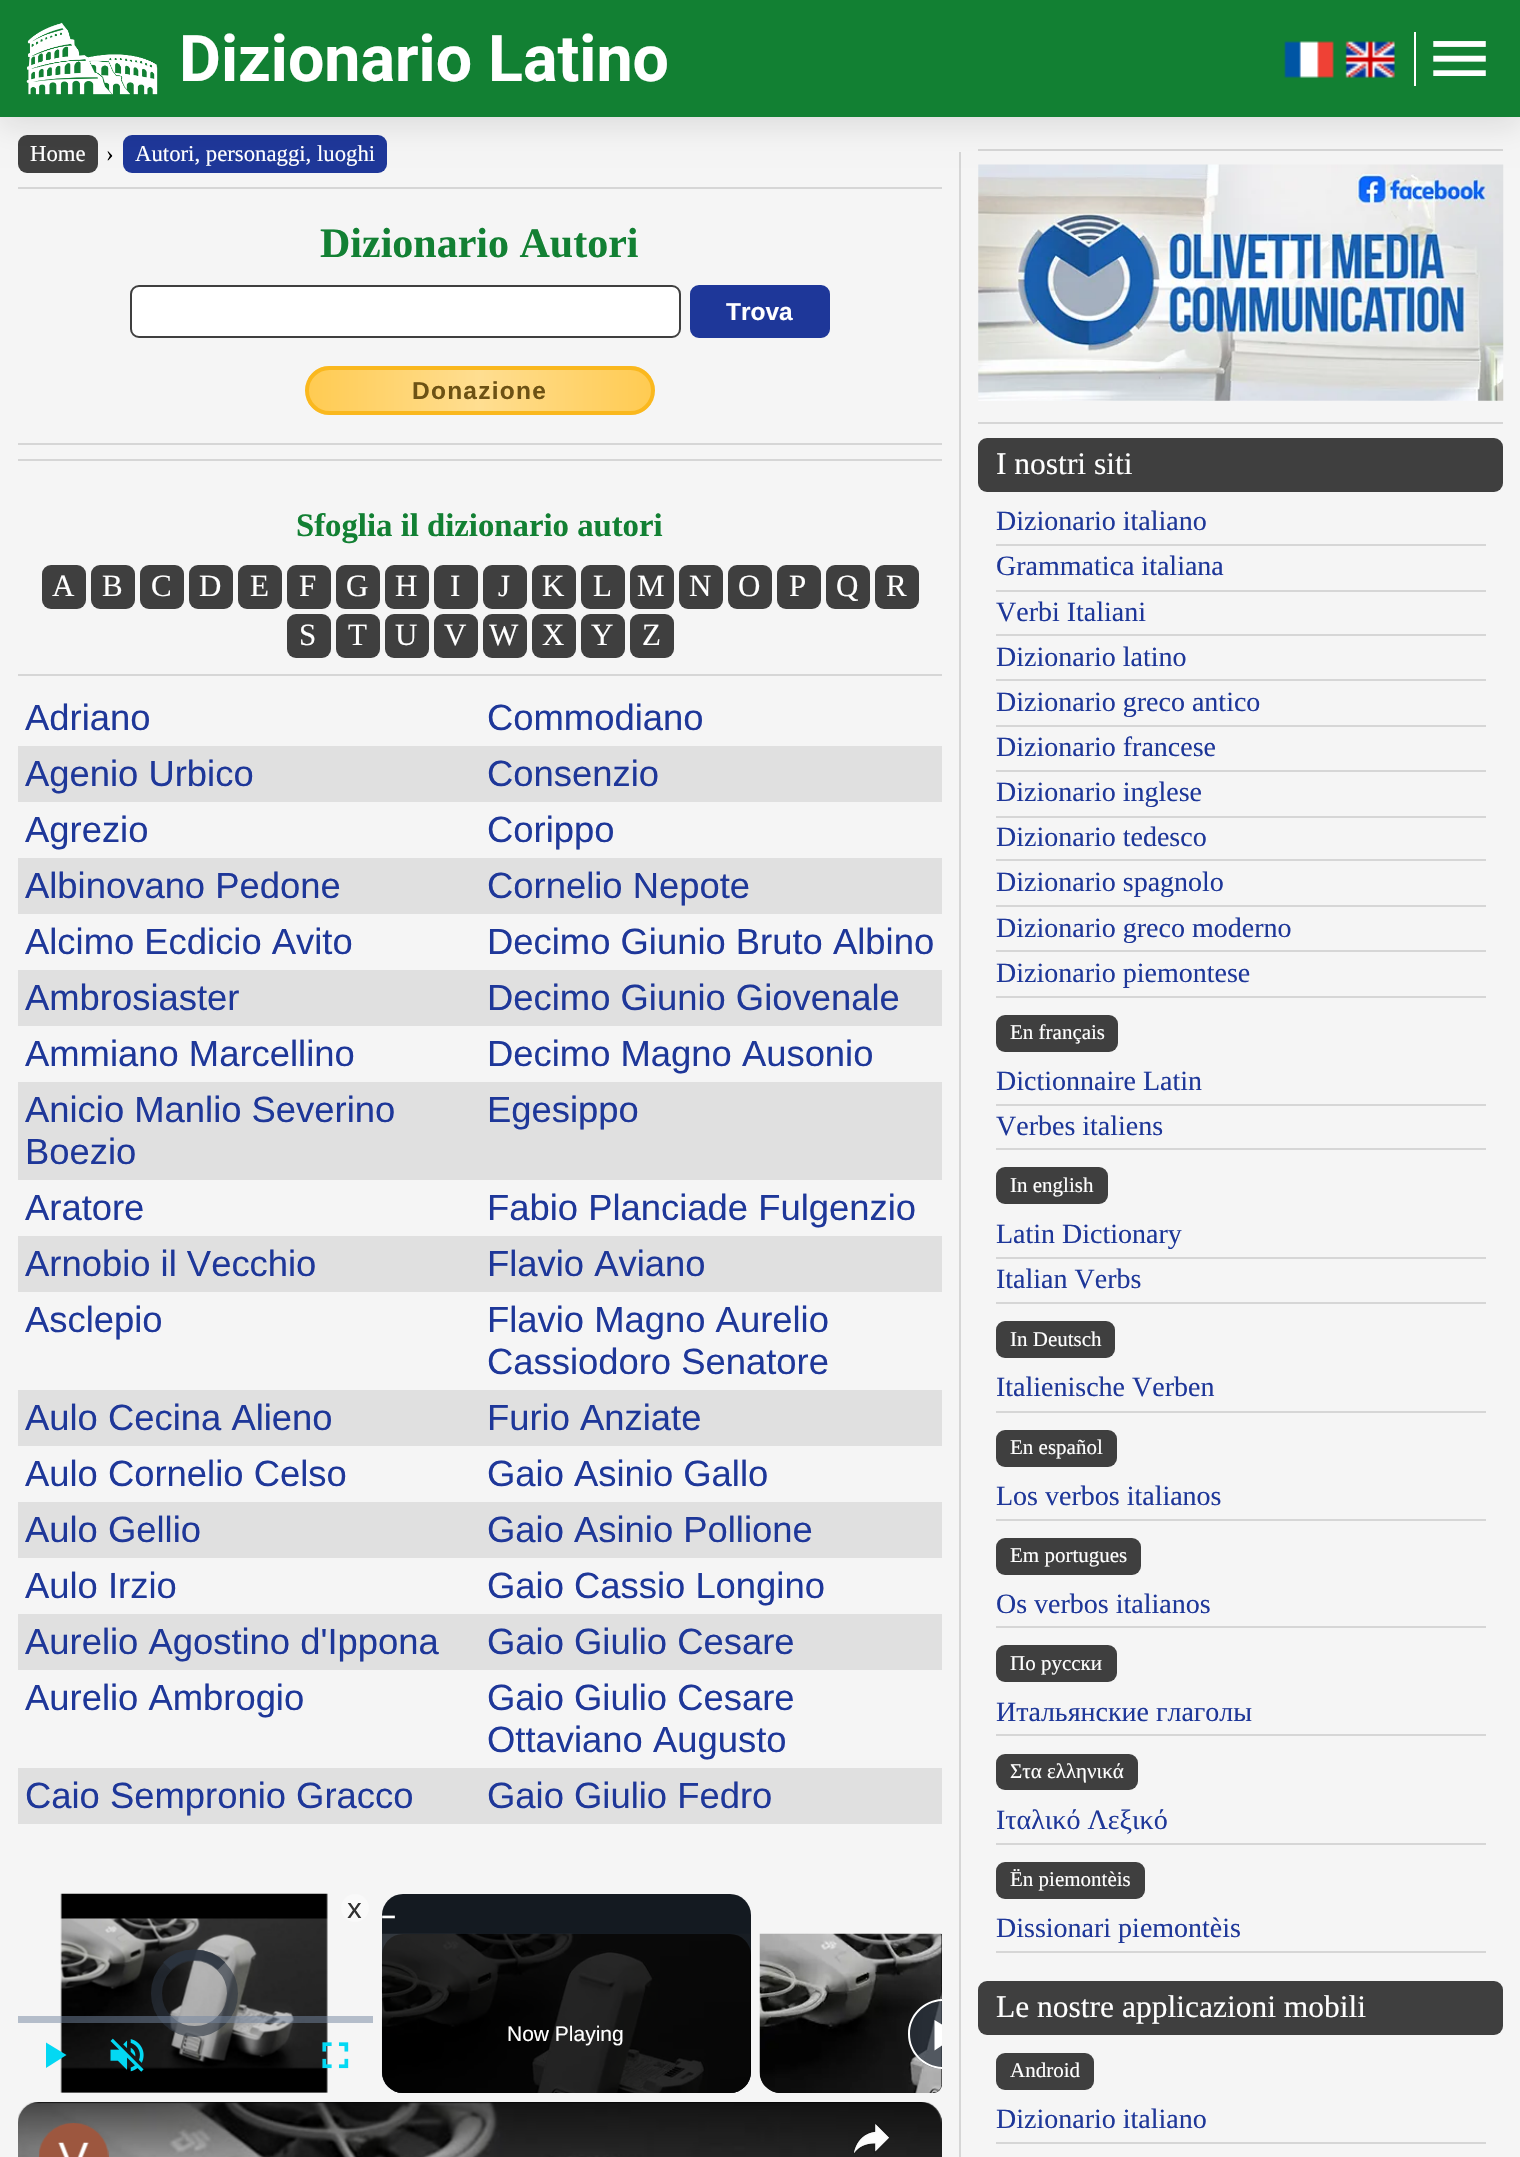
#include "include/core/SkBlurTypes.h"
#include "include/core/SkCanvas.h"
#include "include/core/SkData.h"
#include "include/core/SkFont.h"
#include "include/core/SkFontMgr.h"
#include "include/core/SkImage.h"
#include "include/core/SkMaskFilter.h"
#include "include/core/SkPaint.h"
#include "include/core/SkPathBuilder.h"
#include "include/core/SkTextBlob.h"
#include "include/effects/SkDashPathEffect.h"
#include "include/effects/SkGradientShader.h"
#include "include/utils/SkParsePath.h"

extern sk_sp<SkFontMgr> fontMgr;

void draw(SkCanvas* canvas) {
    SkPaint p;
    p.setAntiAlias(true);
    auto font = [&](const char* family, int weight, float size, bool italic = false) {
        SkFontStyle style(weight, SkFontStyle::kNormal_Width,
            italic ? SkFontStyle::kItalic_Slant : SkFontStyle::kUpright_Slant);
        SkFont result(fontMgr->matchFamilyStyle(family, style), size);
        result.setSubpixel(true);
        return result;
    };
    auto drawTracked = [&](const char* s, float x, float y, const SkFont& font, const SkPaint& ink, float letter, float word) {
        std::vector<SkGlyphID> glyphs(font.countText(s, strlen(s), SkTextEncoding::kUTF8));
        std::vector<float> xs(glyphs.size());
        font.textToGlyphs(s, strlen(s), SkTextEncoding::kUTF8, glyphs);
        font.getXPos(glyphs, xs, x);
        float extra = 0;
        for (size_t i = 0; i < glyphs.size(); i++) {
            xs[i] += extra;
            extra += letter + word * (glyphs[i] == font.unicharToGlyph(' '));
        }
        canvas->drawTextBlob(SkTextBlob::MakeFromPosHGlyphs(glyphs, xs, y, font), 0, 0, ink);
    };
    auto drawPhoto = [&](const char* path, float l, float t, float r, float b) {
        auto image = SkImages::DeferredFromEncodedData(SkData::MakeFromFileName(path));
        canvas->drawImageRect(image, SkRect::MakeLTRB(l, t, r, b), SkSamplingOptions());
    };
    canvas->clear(0xFFF5F5F5);
    p.setColor(0xFF3F3F3F);
    canvas->drawRoundRect(SkRect::MakeLTRB(18, 135, 98, 173), 9, 9, p);
    p.setColor(0xFF1E3799);
    canvas->drawRoundRect(SkRect::MakeLTRB(123, 135, 387, 173), 9, 9, p);
    p.setColor(0xFFD6D6D6);
    canvas->drawRect(SkRect::MakeLTRB(959, 152, 961, 2157), p);
    canvas->drawRect(SkRect::MakeLTRB(978, 149, 1503, 151), p);
    drawPhoto("media/13.png", 978, 164, 1504, 401);
    p.setColor(0x1A000000);
    p.setMaskFilter(SkMaskFilter::MakeBlur(kNormal_SkBlurStyle, 14));
    canvas->drawRect(SkRect::MakeLTRB(0, 9, 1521, 126), p);
    p.setMaskFilter(nullptr);
    p.setColor(0xFF128033);
    canvas->drawRect(SkRect::MakeLTRB(0, 0, 1520, 117), p);
    drawPhoto("media/1.png", 26, 22, 158, 95);
    auto font1 = font("Roboto", 700, 64.5f);
    p.setColor(0xFFFFFFFF);
    canvas->drawString("Dizionario Latino", 179, 81, font1, p);
    drawPhoto("media/2.png", 1284, 41, 1334, 78);
    drawPhoto("media/3.png", 1345, 41, 1395, 78);
    canvas->drawRect(SkRect::MakeLTRB(1414, 32, 1416, 86), p);
    drawPhoto("media/4.png", 1433, 41, 1486, 76);
    auto font2 = font("Liberation Serif", 400, 22.75f);
    canvas->drawString("Home", 30, 161, font2, p);
    p.setColor(0xFF000000);
    canvas->drawString("›", 106, 161, font2, p);
    p.setColor(0xFFFFFFFF);
    canvas->drawString("Autori, personaggi, luoghi", 135, 161, font2, p);
    p.setColor(0xFFD6D6D6);
    canvas->drawRect(SkRect::MakeLTRB(18, 187, 942, 189), p);
    auto font3 = font("Liberation Serif", 700, 42);
    p.setColor(0xFF128033);
    canvas->drawString("Dizionario Autori", 320, 257, font3, p);
    p.setColor(0xFFFFFFFF);
    canvas->drawRoundRect(SkRect::MakeLTRB(131, 286, 680, 337), 8, 8, p);
    p.setStyle(SkPaint::kStroke_Style);
    p.setStrokeWidth(2);
    p.setColor(0xFF3F3F3F);
    canvas->drawRoundRect(SkRect::MakeLTRB(131, 286, 680, 337), 8, 8, p);
    p.setStyle(SkPaint::kFill_Style);
    p.setColor(0xFF1E3799);
    canvas->drawRoundRect(SkRect::MakeLTRB(691, 286, 829, 337), 8, 8, p);
    p.setStyle(SkPaint::kStroke_Style);
    canvas->drawRoundRect(SkRect::MakeLTRB(691, 286, 829, 337), 8, 8, p);
    auto font4 = font("Liberation Sans", 700, 24.5f);
    p.setStyle(SkPaint::kFill_Style);
    p.setColor(0xFFFFFFFF);
    canvas->drawString("Trova", 726, 320, font4, p);
    canvas->save();
    canvas->clipPath(SkPathBuilder().moveTo(329.5f, 366).lineTo(630.5f, 366).cubicTo(644, 366, 655, 377, 655, 390.5f).cubicTo(655, 404, 644, 415, 630.5f, 415).lineTo(329.5f, 415).cubicTo(316, 415, 305, 404, 305, 390.5f).cubicTo(305, 377, 316, 366, 329.5f, 366).close().detach(), true);
    {
        const SkColor colors[] = {0xFFFFCB52, 0xFFFFDE91, 0xFFFFCB52};
        const float stops[] = {0, 0.5f, 1};
        const SkPoint ends[] = {{308, 390}, {651, 390}};
        p.setShader(SkGradientShader::MakeLinear(ends, colors, stops, 3, SkTileMode::kClamp));
        p.setAlpha(255);
    }
    canvas->drawRect(SkRect::MakeLTRB(308, 366, 651, 415), p);
    canvas->restore();
    p.setStyle(SkPaint::kStroke_Style);
    p.setStrokeWidth(4);
    p.setShader(nullptr);
    p.setColor(0xFFFAB81E);
    canvas->drawRoundRect(SkRect::MakeLTRB(307, 368, 653, 413), 22.5f, 22.5f, p);
    p.setStyle(SkPaint::kFill_Style);
    p.setColor(0xFF6D5214);
    drawTracked("Donazione", 412, 399, font4, p, 1.25f, 0);
    p.setColor(0xFFD6D6D6);
    canvas->drawRect(SkRect::MakeLTRB(18, 443, 942, 445), p);
    canvas->drawRect(SkRect::MakeLTRB(18, 459, 942, 461), p);
    auto font5 = font("Liberation Serif", 700, 32.75f);
    p.setColor(0xFF128033);
    canvas->drawString("Sfoglia il dizionario autori", 296, 536, font5, p);
    p.setColor(0xFF3F3F3F);
    canvas->drawRoundRect(SkRect::MakeLTRB(42, 565, 86, 609), 9, 9, p);
    auto font6 = font("Liberation Serif", 400, 31);
    p.setColor(0xFFFFFFFF);
    canvas->drawString("A", 52, 596, font6, p);
    p.setColor(0xFF3F3F3F);
    canvas->drawRoundRect(SkRect::MakeLTRB(91, 565, 135, 609), 9, 9, p);
    p.setColor(0xFFFFFFFF);
    canvas->drawString("B", 102, 596, font6, p);
    p.setColor(0xFF3F3F3F);
    canvas->drawRoundRect(SkRect::MakeLTRB(140, 565, 184, 609), 9, 9, p);
    p.setColor(0xFFFFFFFF);
    canvas->drawString("C", 151, 596, font6, p);
    p.setColor(0xFF3F3F3F);
    canvas->drawRoundRect(SkRect::MakeLTRB(189, 565, 233, 609), 9, 9, p);
    p.setColor(0xFFFFFFFF);
    canvas->drawString("D", 199, 596, font6, p);
    p.setColor(0xFF3F3F3F);
    canvas->drawRoundRect(SkRect::MakeLTRB(238, 565, 282, 609), 9, 9, p);
    p.setColor(0xFFFFFFFF);
    canvas->drawString("E", 250, 596, font6, p);
    p.setColor(0xFF3F3F3F);
    canvas->drawRoundRect(SkRect::MakeLTRB(287, 565, 331, 609), 9, 9, p);
    p.setColor(0xFFFFFFFF);
    canvas->drawString("F", 299, 596, font6, p);
    p.setColor(0xFF3F3F3F);
    canvas->drawRoundRect(SkRect::MakeLTRB(336, 565, 380, 609), 9, 9, p);
    p.setColor(0xFFFFFFFF);
    canvas->drawString("G", 346, 596, font6, p);
    p.setColor(0xFF3F3F3F);
    canvas->drawRoundRect(SkRect::MakeLTRB(385, 565, 429, 609), 9, 9, p);
    p.setColor(0xFFFFFFFF);
    canvas->drawString("H", 395, 596, font6, p);
    p.setColor(0xFF3F3F3F);
    canvas->drawRoundRect(SkRect::MakeLTRB(434, 565, 478, 609), 9, 9, p);
    p.setColor(0xFFFFFFFF);
    canvas->drawString("I", 450, 596, font6, p);
    p.setColor(0xFF3F3F3F);
    canvas->drawRoundRect(SkRect::MakeLTRB(483, 565, 527, 609), 9, 9, p);
    p.setColor(0xFFFFFFFF);
    canvas->drawString("J", 498, 596, font6, p);
    p.setColor(0xFF3F3F3F);
    canvas->drawRoundRect(SkRect::MakeLTRB(532, 565, 576, 609), 9, 9, p);
    p.setColor(0xFFFFFFFF);
    canvas->drawString("K", 542, 596, font6, p);
    p.setColor(0xFF3F3F3F);
    canvas->drawRoundRect(SkRect::MakeLTRB(581, 565, 625, 609), 9, 9, p);
    p.setColor(0xFFFFFFFF);
    canvas->drawString("L", 593, 596, font6, p);
    p.setColor(0xFF3F3F3F);
    canvas->drawRoundRect(SkRect::MakeLTRB(630, 565, 674, 609), 9, 9, p);
    p.setColor(0xFFFFFFFF);
    canvas->drawString("M", 637, 596, font6, p);
    p.setColor(0xFF3F3F3F);
    canvas->drawRoundRect(SkRect::MakeLTRB(679, 565, 723, 609), 9, 9, p);
    p.setColor(0xFFFFFFFF);
    canvas->drawString("N", 689, 596, font6, p);
    p.setColor(0xFF3F3F3F);
    canvas->drawRoundRect(SkRect::MakeLTRB(728, 565, 772, 609), 9, 9, p);
    p.setColor(0xFFFFFFFF);
    canvas->drawString("O", 738, 596, font6, p);
    p.setColor(0xFF3F3F3F);
    canvas->drawRoundRect(SkRect::MakeLTRB(777, 565, 821, 609), 9, 9, p);
    p.setColor(0xFFFFFFFF);
    canvas->drawString("P", 789, 596, font6, p);
    p.setColor(0xFF3F3F3F);
    canvas->drawRoundRect(SkRect::MakeLTRB(826, 565, 870, 609), 9, 9, p);
    p.setColor(0xFFFFFFFF);
    canvas->drawString("Q", 836, 596, font6, p);
    p.setColor(0xFF3F3F3F);
    canvas->drawRoundRect(SkRect::MakeLTRB(875, 565, 919, 609), 9, 9, p);
    p.setColor(0xFFFFFFFF);
    canvas->drawString("R", 886, 596, font6, p);
    p.setColor(0xFF3F3F3F);
    canvas->drawRoundRect(SkRect::MakeLTRB(287, 614, 331, 658), 9, 9, p);
    p.setColor(0xFFFFFFFF);
    canvas->drawString("S", 299, 645, font6, p);
    p.setColor(0xFF3F3F3F);
    canvas->drawRoundRect(SkRect::MakeLTRB(336, 614, 380, 658), 9, 9, p);
    p.setColor(0xFFFFFFFF);
    canvas->drawString("T", 348, 645, font6, p);
    p.setColor(0xFF3F3F3F);
    canvas->drawRoundRect(SkRect::MakeLTRB(385, 614, 429, 658), 9, 9, p);
    p.setColor(0xFFFFFFFF);
    canvas->drawString("U", 395, 645, font6, p);
    p.setColor(0xFF3F3F3F);
    canvas->drawRoundRect(SkRect::MakeLTRB(434, 614, 478, 658), 9, 9, p);
    p.setColor(0xFFFFFFFF);
    canvas->drawString("V", 444, 645, font6, p);
    p.setColor(0xFF3F3F3F);
    canvas->drawRoundRect(SkRect::MakeLTRB(483, 614, 527, 658), 9, 9, p);
    p.setColor(0xFFFFFFFF);
    canvas->drawString("W", 489, 645, font6, p);
    p.setColor(0xFF3F3F3F);
    canvas->drawRoundRect(SkRect::MakeLTRB(532, 614, 576, 658), 9, 9, p);
    p.setColor(0xFFFFFFFF);
    canvas->drawString("X", 542, 645, font6, p);
    p.setColor(0xFF3F3F3F);
    canvas->drawRoundRect(SkRect::MakeLTRB(581, 614, 625, 658), 9, 9, p);
    p.setColor(0xFFFFFFFF);
    canvas->drawString("Y", 591, 645, font6, p);
    p.setColor(0xFF3F3F3F);
    canvas->drawRoundRect(SkRect::MakeLTRB(630, 614, 674, 658), 9, 9, p);
    p.setColor(0xFFFFFFFF);
    canvas->drawString("Z", 642, 645, font6, p);
    p.setColor(0xFFD6D6D6);
    canvas->drawRect(SkRect::MakeLTRB(18, 674, 942, 676), p);
    auto font7 = font("Liberation Sans", 400, 36.4f);
    p.setColor(0xFF1E3799);
    canvas->drawString("Adriano", 25, 730, font7, p);
    canvas->drawString("Commodiano", 487, 730, font7, p);
    p.setColor(0xFFE0E0E0);
    canvas->drawRect(SkRect::MakeLTRB(18, 746, 942, 802), p);
    p.setColor(0xFF1E3799);
    {
        const struct { const char* s; float x, y; } items[] = {
            {"Agenio Urbico", 25, 786},
            {"Consenzio", 487, 786},
            {"Agrezio", 25, 842},
            {"Corippo", 487, 842},
        };
        for (auto [s, x, y] : items) {
            canvas->drawString(s, x, y, font7, p);
        }
    }
    p.setColor(0xFFE0E0E0);
    canvas->drawRect(SkRect::MakeLTRB(18, 858, 942, 914), p);
    p.setColor(0xFF1E3799);
    {
        const struct { const char* s; float x, y; } items[] = {
            {"Albinovano Pedone", 25, 898},
            {"Cornelio Nepote", 487, 898},
            {"Alcimo Ecdicio Avito", 25, 954},
            {"Decimo Giunio Bruto Albino", 487, 954},
        };
        for (auto [s, x, y] : items) {
            canvas->drawString(s, x, y, font7, p);
        }
    }
    p.setColor(0xFFE0E0E0);
    canvas->drawRect(SkRect::MakeLTRB(18, 970, 942, 1026), p);
    p.setColor(0xFF1E3799);
    {
        const struct { const char* s; float x, y; } items[] = {
            {"Ambrosiaster", 25, 1010},
            {"Decimo Giunio Giovenale", 487, 1010},
            {"Ammiano Marcellino", 25, 1066},
            {"Decimo Magno Ausonio", 487, 1066},
        };
        for (auto [s, x, y] : items) {
            canvas->drawString(s, x, y, font7, p);
        }
    }
    p.setColor(0xFFE0E0E0);
    canvas->drawRect(SkRect::MakeLTRB(18, 1082, 942, 1180), p);
    p.setColor(0xFF1E3799);
    {
        const struct { const char* s; float x, y; } items[] = {
            {"Anicio Manlio Severino", 25, 1122},
            {"Boezio", 25, 1164},
            {"Egesippo", 487, 1122},
            {"Aratore", 25, 1220},
            {"Fabio Planciade Fulgenzio", 487, 1220},
        };
        for (auto [s, x, y] : items) {
            canvas->drawString(s, x, y, font7, p);
        }
    }
    p.setColor(0xFFE0E0E0);
    canvas->drawRect(SkRect::MakeLTRB(18, 1236, 942, 1292), p);
    p.setColor(0xFF1E3799);
    {
        const struct { const char* s; float x, y; } items[] = {
            {"Arnobio il Vecchio", 25, 1276},
            {"Flavio Aviano", 487, 1276},
            {"Asclepio", 25, 1332},
            {"Flavio Magno Aurelio", 487, 1332},
            {"Cassiodoro Senatore", 487, 1374},
        };
        for (auto [s, x, y] : items) {
            canvas->drawString(s, x, y, font7, p);
        }
    }
    p.setColor(0xFFE0E0E0);
    canvas->drawRect(SkRect::MakeLTRB(18, 1390, 942, 1446), p);
    p.setColor(0xFF1E3799);
    {
        const struct { const char* s; float x, y; } items[] = {
            {"Aulo Cecina Alieno", 25, 1430},
            {"Furio Anziate", 487, 1430},
            {"Aulo Cornelio Celso", 25, 1486},
            {"Gaio Asinio Gallo", 487, 1486},
        };
        for (auto [s, x, y] : items) {
            canvas->drawString(s, x, y, font7, p);
        }
    }
    p.setColor(0xFFE0E0E0);
    canvas->drawRect(SkRect::MakeLTRB(18, 1502, 942, 1558), p);
    p.setColor(0xFF1E3799);
    {
        const struct { const char* s; float x, y; } items[] = {
            {"Aulo Gellio", 25, 1542},
            {"Gaio Asinio Pollione", 487, 1542},
            {"Aulo Irzio", 25, 1598},
            {"Gaio Cassio Longino", 487, 1598},
        };
        for (auto [s, x, y] : items) {
            canvas->drawString(s, x, y, font7, p);
        }
    }
    p.setColor(0xFFE0E0E0);
    canvas->drawRect(SkRect::MakeLTRB(18, 1614, 942, 1670), p);
    p.setColor(0xFF1E3799);
    {
        const struct { const char* s; float x, y; } items[] = {
            {"Aurelio Agostino d'Ippona", 25, 1654},
            {"Gaio Giulio Cesare", 487, 1654},
            {"Aurelio Ambrogio", 25, 1710},
            {"Gaio Giulio Cesare", 487, 1710},
            {"Ottaviano Augusto", 487, 1752},
        };
        for (auto [s, x, y] : items) {
            canvas->drawString(s, x, y, font7, p);
        }
    }
    p.setColor(0xFFE0E0E0);
    canvas->drawRect(SkRect::MakeLTRB(18, 1768, 942, 1824), p);
    p.setColor(0xFF1E3799);
    canvas->drawString("Caio Sempronio Gracco", 25, 1808, font7, p);
    canvas->drawString("Gaio Giulio Fedro", 487, 1808, font7, p);
    drawPhoto("media/5.png", 60, 1893, 328, 2093);
    p.setStyle(SkPaint::kStroke_Style);
    p.setStrokeWidth(11);
    p.setColor(0x962B333F);
    canvas->drawCircle(194.5f, 1993.5f, 38, p);
    p.setStrokeWidth(10.5f);
    canvas->drawPath(SkPathBuilder().moveTo(167, 1966).cubicTo(182, 1951, 206.5f, 1951, 221.5f, 1966).detach(), p);
    canvas->drawPath(SkPathBuilder().moveTo(167, 1966).cubicTo(182, 1951, 206.5f, 1951, 221.5f, 1966).detach(), p);
    p.setStyle(SkPaint::kFill_Style);
    p.setColor(0x8073859F);
    canvas->drawRect(SkRect::MakeLTRB(18, 2016, 373, 2023), p);
    p.setColor(0xFF03D8F3);
    canvas->drawPath(SkPathBuilder().moveTo(46, 2042.5f).lineTo(46, 2068).lineTo(66.5f, 2055).close().detach(), p);
    drawPhoto("media/6.png", 110, 2038, 144, 2072);
    drawPhoto("media/7.png", 322, 2042, 349, 2069);
    p.setColor(0xFFF9F9F9);
    canvas->drawCircle(355, 1908, 14, p);
    auto font8 = font("Noto Sans", 400, 28);
    p.setColor(0xFF313131);
    canvas->drawString("x", 347, 1918, font8, p);
    p.setColor(0xFF141A21);
    canvas->drawRoundRect(SkRect::MakeLTRB(382, 1894, 751, 2093), 21, 21, p);
    auto font9 = font("Noto Sans", 400, 30);
    p.setColor(0xFFFFFFFF);
    canvas->drawString("–", 381, 1925, font9, p);
    p.setColor(0xFF000000);
    canvas->drawRoundRect(SkRect::MakeLTRB(382, 1934, 751, 2093), 21, 21, p);
    drawPhoto("media/8.png", 381, 1933, 750, 2093);
    auto font10 = font("Liberation Sans", 400, 21);
    p.setColor(0xFFFFFFFF);
    canvas->drawString("Now Playing", 507, 2041, font10, p);
    p.setColor(0xFF000000);
    canvas->drawPath(SkPathBuilder().moveTo(781, 1934).lineTo(942, 1934).lineTo(942, 2084).cubicTo(942, 2089, 938, 2093, 933, 2093).lineTo(781, 2093).cubicTo(769.5f, 2093, 760, 2083.5f, 760, 2072).lineTo(760, 1955).cubicTo(760, 1943.5f, 769.5f, 1934, 781, 1934).close().detach(), p);
    drawPhoto("media/9.png", 759, 1933, 942, 2093);
    p.setColor(0xB32B333F);
    canvas->drawPath(SkPathBuilder().moveTo(943, 1999).lineTo(942, 1999).lineTo(942, 2069).lineTo(943, 2069).cubicTo(923.5f, 2069, 908, 2053.5f, 908, 2034).cubicTo(908, 2014.5f, 923.5f, 1999, 943, 1999).close().detach(), p);
    p.setColor(0xFFFFFFFF);
    canvas->drawPath(SkPathBuilder().moveTo(942, 1999).cubicTo(923, 2000, 908, 2015, 908, 2034).cubicTo(908, 2053, 923, 2068, 942, 2069).lineTo(942, 2067).cubicTo(924, 2066, 910, 2052, 910, 2034).cubicTo(910, 2016, 924, 2002, 942, 2001).close().detach(), p);
    canvas->drawPath(SkPathBuilder().moveTo(934.5f, 2020).lineTo(942, 2024.5f).lineTo(942, 2045.5f).lineTo(934.5f, 2050.5f).close().detach(), p);
    p.setColor(0xFFF9F9F9);
    canvas->drawCircle(924, 2116, 14, p);
    drawPhoto("media/10.png", 18, 2102, 942, 2157);
    {
        const SkColor colors[] = {0x99000000, 0x00000000, 0x00000000, 0xCC000000};
        const float stops[] = {0, 0.16f, 0.84f, 1};
        const SkPoint ends[] = {{480, 2102}, {480, 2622}};
        p.setShader(SkGradientShader::MakeLinear(ends, colors, stops, 4, SkTileMode::kClamp));
        p.setAlpha(255);
    }
    canvas->drawRoundRect(SkRect::MakeLTRB(18, 2102, 942, 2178), 21, 21, p);
    drawPhoto("media/11.png", 39, 2123, 109, 2157);
    drawPhoto("media/12.png", 853, 2124, 889, 2154);
    p.setShader(nullptr);
    p.setColor(0xFFD6D6D6);
    canvas->drawRect(SkRect::MakeLTRB(978, 422, 1503, 424), p);
    p.setColor(0xFF3F3F3F);
    canvas->drawRoundRect(SkRect::MakeLTRB(978, 438, 1503, 492), 9, 9, p);
    auto font11 = font("Liberation Serif", 400, 31.5f);
    p.setColor(0xFFFFFFFF);
    canvas->drawString("I nostri siti", 996, 474, font11, p);
    p.setColor(0xFFD6D6D6);
    canvas->drawRect(SkRect::MakeLTRB(996, 544, 1486, 546), p);
    auto font12 = font("Liberation Serif", 400, 28);
    p.setColor(0xFF1E3799);
    canvas->drawString("Dizionario italiano", 996, 530, font12, p);
    p.setColor(0xFFD6D6D6);
    canvas->drawRect(SkRect::MakeLTRB(996, 590, 1486, 592), p);
    p.setColor(0xFF1E3799);
    canvas->drawString("Grammatica italiana", 996, 575, font12, p);
    p.setColor(0xFFD6D6D6);
    canvas->drawRect(SkRect::MakeLTRB(996, 634, 1486, 636), p);
    p.setColor(0xFF1E3799);
    canvas->drawString("Verbi Italiani", 996, 621, font12, p);
    p.setColor(0xFFD6D6D6);
    canvas->drawRect(SkRect::MakeLTRB(996, 679, 1486, 681), p);
    p.setColor(0xFF1E3799);
    canvas->drawString("Dizionario latino", 996, 666, font12, p);
    p.setColor(0xFFD6D6D6);
    canvas->drawRect(SkRect::MakeLTRB(996, 725, 1486, 727), p);
    p.setColor(0xFF1E3799);
    canvas->drawString("Dizionario greco antico", 996, 711, font12, p);
    p.setColor(0xFFD6D6D6);
    canvas->drawRect(SkRect::MakeLTRB(996, 770, 1486, 772), p);
    p.setColor(0xFF1E3799);
    canvas->drawString("Dizionario francese", 996, 756, font12, p);
    p.setColor(0xFFD6D6D6);
    canvas->drawRect(SkRect::MakeLTRB(996, 816, 1486, 818), p);
    p.setColor(0xFF1E3799);
    canvas->drawString("Dizionario inglese", 996, 801, font12, p);
    p.setColor(0xFFD6D6D6);
    canvas->drawRect(SkRect::MakeLTRB(996, 859, 1486, 861), p);
    p.setColor(0xFF1E3799);
    canvas->drawString("Dizionario tedesco", 996, 846, font12, p);
    p.setColor(0xFFD6D6D6);
    canvas->drawRect(SkRect::MakeLTRB(996, 905, 1486, 907), p);
    p.setColor(0xFF1E3799);
    canvas->drawString("Dizionario spagnolo", 996, 891, font12, p);
    p.setColor(0xFFD6D6D6);
    canvas->drawRect(SkRect::MakeLTRB(996, 950, 1486, 952), p);
    p.setColor(0xFF1E3799);
    canvas->drawString("Dizionario greco moderno", 996, 937, font12, p);
    p.setColor(0xFFD6D6D6);
    canvas->drawRect(SkRect::MakeLTRB(996, 996, 1486, 998), p);
    p.setColor(0xFF1E3799);
    canvas->drawString("Dizionario piemontese", 996, 982, font12, p);
    p.setColor(0xFF3F3F3F);
    canvas->drawRoundRect(SkRect::MakeLTRB(996, 1015, 1118, 1052), 9, 9, p);
    auto font13 = font("Liberation Serif", 400, 21);
    p.setColor(0xFFFFFFFF);
    canvas->drawString("En français", 1010, 1039, font13, p);
    p.setColor(0xFFD6D6D6);
    canvas->drawRect(SkRect::MakeLTRB(996, 1104, 1486, 1106), p);
    p.setColor(0xFF1E3799);
    canvas->drawString("Dictionnaire Latin", 996, 1090, font12, p);
    p.setColor(0xFFD6D6D6);
    canvas->drawRect(SkRect::MakeLTRB(996, 1148, 1486, 1150), p);
    p.setColor(0xFF1E3799);
    canvas->drawString("Verbes italiens", 996, 1135, font12, p);
    p.setColor(0xFF3F3F3F);
    canvas->drawRoundRect(SkRect::MakeLTRB(996, 1167, 1108, 1204), 9, 9, p);
    p.setColor(0xFFFFFFFF);
    canvas->drawString("In english", 1010, 1192, font13, p);
    p.setColor(0xFFD6D6D6);
    canvas->drawRect(SkRect::MakeLTRB(996, 1257, 1486, 1259), p);
    p.setColor(0xFF1E3799);
    canvas->drawString("Latin Dictionary", 996, 1243, font12, p);
    p.setColor(0xFFD6D6D6);
    canvas->drawRect(SkRect::MakeLTRB(996, 1302, 1486, 1304), p);
    p.setColor(0xFF1E3799);
    canvas->drawString("Italian Verbs", 996, 1288, font12, p);
    p.setColor(0xFF3F3F3F);
    canvas->drawRoundRect(SkRect::MakeLTRB(996, 1321, 1115, 1358), 9, 9, p);
    p.setColor(0xFFFFFFFF);
    canvas->drawString("In Deutsch", 1010, 1346, font13, p);
    p.setColor(0xFFD6D6D6);
    canvas->drawRect(SkRect::MakeLTRB(996, 1411, 1486, 1413), p);
    p.setColor(0xFF1E3799);
    canvas->drawString("Italienische Verben", 996, 1396, font12, p);
    p.setColor(0xFF3F3F3F);
    canvas->drawRoundRect(SkRect::MakeLTRB(996, 1430, 1117, 1467), 9, 9, p);
    p.setColor(0xFFFFFFFF);
    canvas->drawString("En español", 1010, 1454, font13, p);
    p.setColor(0xFFD6D6D6);
    canvas->drawRect(SkRect::MakeLTRB(996, 1519, 1486, 1521), p);
    p.setColor(0xFF1E3799);
    canvas->drawString("Los verbos italianos", 996, 1505, font12, p);
    p.setColor(0xFF3F3F3F);
    canvas->drawRoundRect(SkRect::MakeLTRB(996, 1538, 1141, 1575), 9, 9, p);
    p.setColor(0xFFFFFFFF);
    canvas->drawString("Em portugues", 1010, 1562, font13, p);
    p.setColor(0xFFD6D6D6);
    canvas->drawRect(SkRect::MakeLTRB(996, 1626, 1486, 1628), p);
    p.setColor(0xFF1E3799);
    canvas->drawString("Os verbos italianos", 996, 1613, font12, p);
    p.setColor(0xFF3F3F3F);
    canvas->drawRoundRect(SkRect::MakeLTRB(996, 1645, 1117, 1682), 9, 9, p);
    p.setColor(0xFFFFFFFF);
    canvas->drawString("По русски", 1010, 1670, font13, p);
    p.setColor(0xFFD6D6D6);
    canvas->drawRect(SkRect::MakeLTRB(996, 1734, 1486, 1736), p);
    p.setColor(0xFF1E3799);
    canvas->drawString("Итальянские глаголы", 996, 1721, font12, p);
    p.setColor(0xFF3F3F3F);
    canvas->drawRoundRect(SkRect::MakeLTRB(996, 1754, 1138, 1790), 9, 9, p);
    p.setColor(0xFFFFFFFF);
    canvas->drawString("Στα ελληνικά", 1010, 1778, font13, p);
    p.setColor(0xFFD6D6D6);
    canvas->drawRect(SkRect::MakeLTRB(996, 1843, 1486, 1845), p);
    p.setColor(0xFF1E3799);
    canvas->drawString("Ιταλικό Λεξικό", 996, 1829, font12, p);
    p.setColor(0xFF3F3F3F);
    canvas->drawRoundRect(SkRect::MakeLTRB(996, 1862, 1145, 1899), 9, 9, p);
    p.setColor(0xFFFFFFFF);
    canvas->drawString("Ën piemontèis", 1010, 1886, font13, p);
    p.setColor(0xFFD6D6D6);
    canvas->drawRect(SkRect::MakeLTRB(996, 1951, 1486, 1953), p);
    p.setColor(0xFF1E3799);
    canvas->drawString("Dissionari piemontèis", 996, 1937, font12, p);
    p.setColor(0xFF3F3F3F);
    canvas->drawRoundRect(SkRect::MakeLTRB(978, 1981, 1503, 2035), 9, 9, p);
    p.setColor(0xFFFFFFFF);
    canvas->drawString("Le nostre applicazioni mobili", 996, 2017, font11, p);
    p.setColor(0xFF3F3F3F);
    canvas->drawRoundRect(SkRect::MakeLTRB(996, 2053, 1094, 2090), 9, 9, p);
    p.setColor(0xFFFFFFFF);
    canvas->drawString("Android", 1010, 2077, font13, p);
    p.setColor(0xFFD6D6D6);
    canvas->drawRect(SkRect::MakeLTRB(996, 2142, 1486, 2144), p);
    p.setColor(0xFF1E3799);
    canvas->drawString("Dizionario italiano", 996, 2128, font12, p);
}
